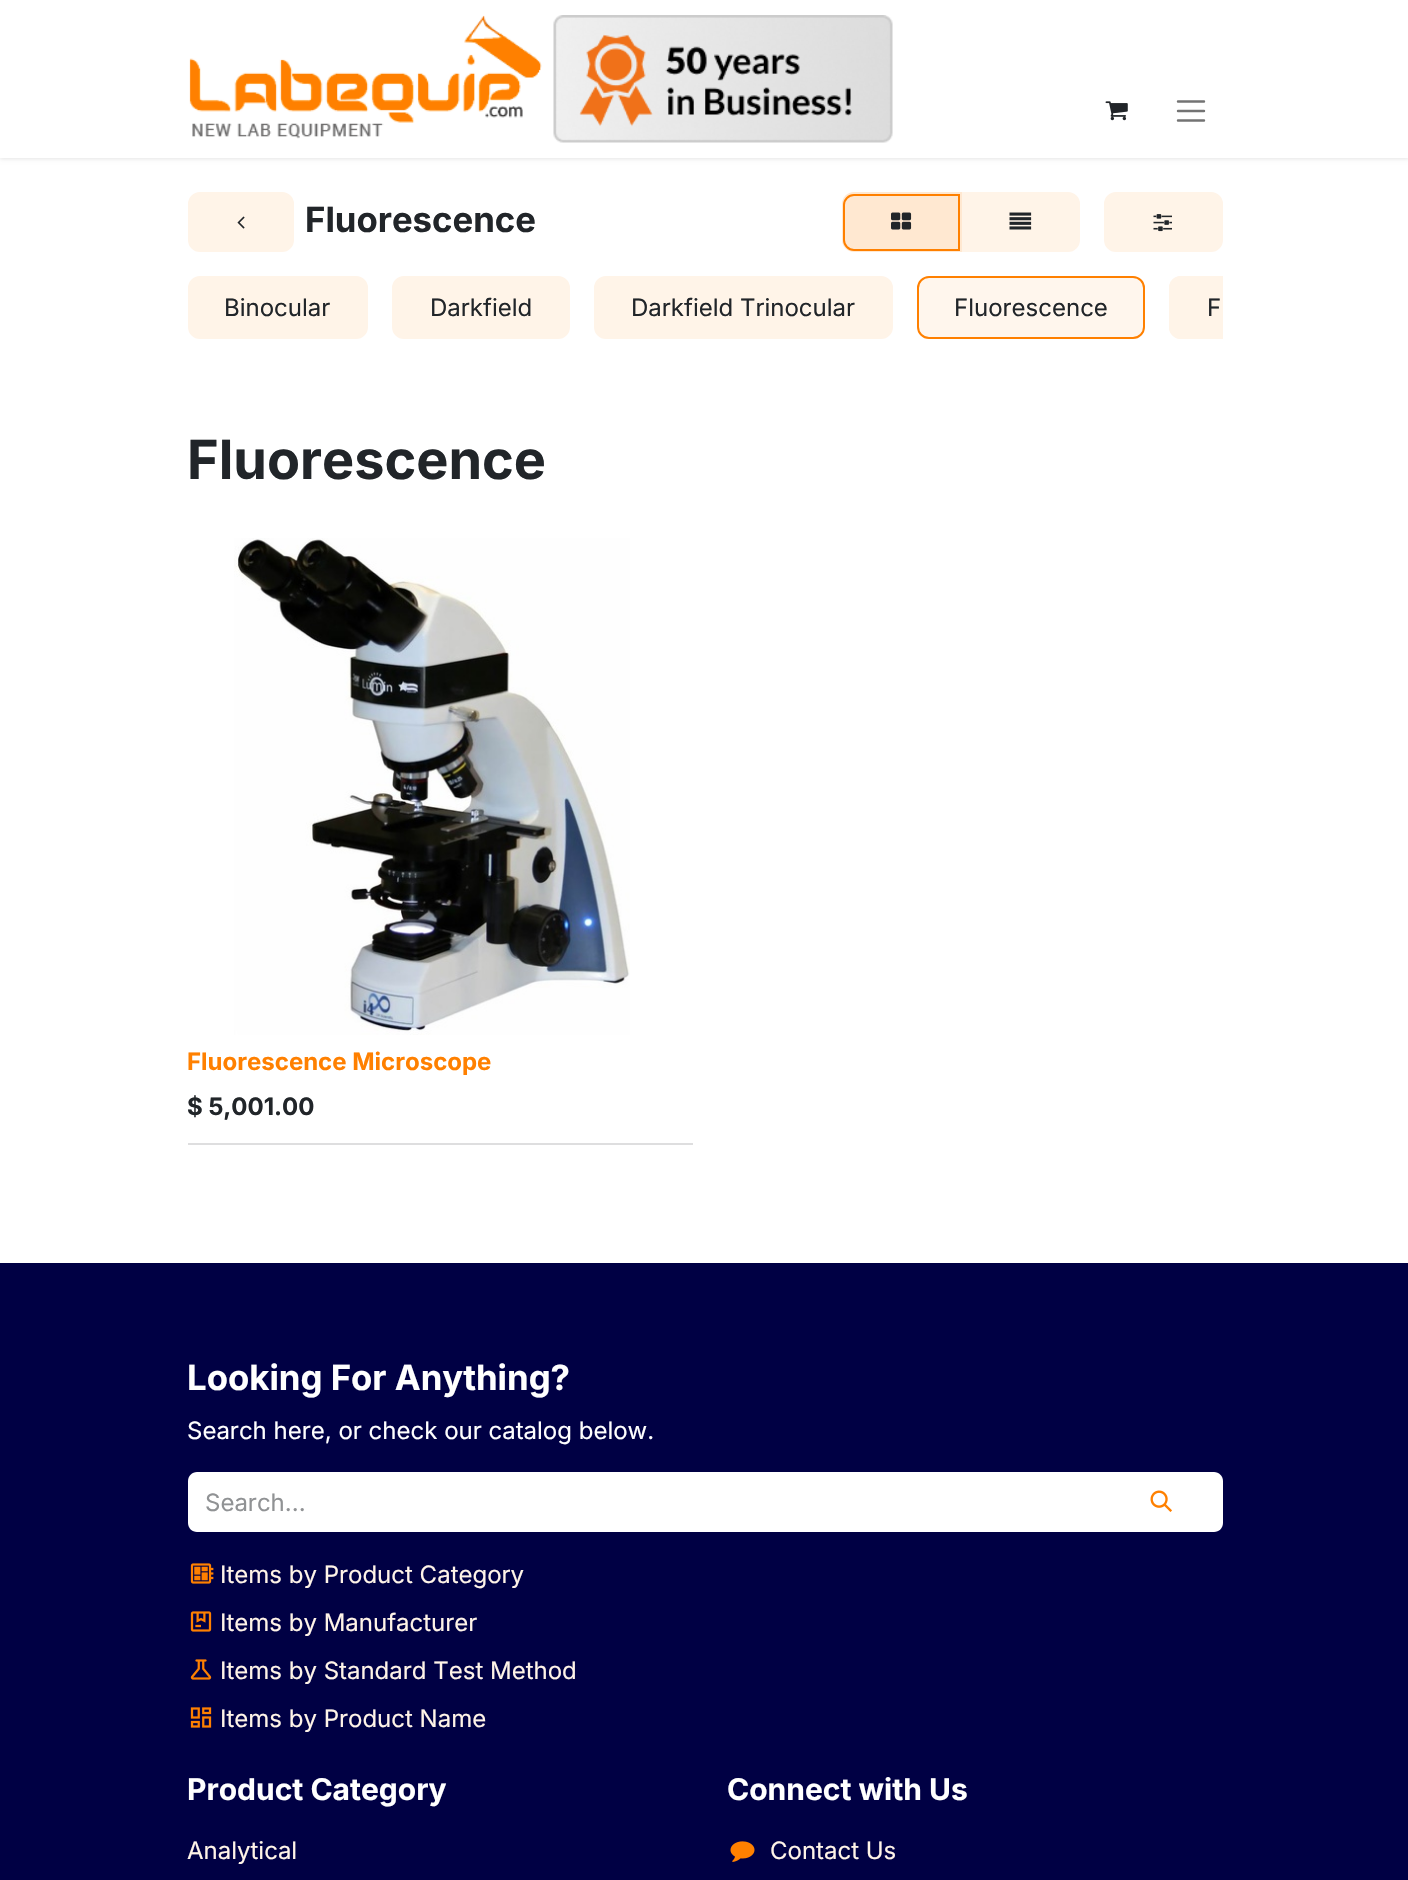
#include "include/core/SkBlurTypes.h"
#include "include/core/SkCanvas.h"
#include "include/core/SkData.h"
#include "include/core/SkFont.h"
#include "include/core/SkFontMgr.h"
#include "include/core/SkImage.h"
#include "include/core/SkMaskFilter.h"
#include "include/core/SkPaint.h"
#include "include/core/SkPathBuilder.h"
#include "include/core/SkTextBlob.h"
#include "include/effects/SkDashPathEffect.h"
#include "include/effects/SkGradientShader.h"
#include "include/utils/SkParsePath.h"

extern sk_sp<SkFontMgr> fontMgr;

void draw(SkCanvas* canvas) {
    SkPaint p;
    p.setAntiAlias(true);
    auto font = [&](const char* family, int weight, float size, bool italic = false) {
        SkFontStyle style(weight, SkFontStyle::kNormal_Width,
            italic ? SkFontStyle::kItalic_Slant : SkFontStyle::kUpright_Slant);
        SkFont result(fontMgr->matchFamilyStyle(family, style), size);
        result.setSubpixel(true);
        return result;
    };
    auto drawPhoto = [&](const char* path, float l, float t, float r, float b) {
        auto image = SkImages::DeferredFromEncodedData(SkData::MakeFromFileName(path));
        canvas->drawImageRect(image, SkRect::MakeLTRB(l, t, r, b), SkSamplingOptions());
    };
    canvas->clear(0xFFFFFFFF);
    p.setColor(0x1A000000);
    p.setMaskFilter(SkMaskFilter::MakeBlur(kNormal_SkBlurStyle, 2));
    canvas->drawRect(SkRect::MakeLTRB(0, 2, 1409, 159), p);
    p.setMaskFilter(nullptr);
    p.setColor(0xFFFFFFFF);
    canvas->drawRect(SkRect::MakeLTRB(0, 0, 1408, 158), p);
    drawPhoto("media/1.png", 189, 15, 542, 139);
    drawPhoto("media/2.png", 553, 15, 893, 143);
    drawPhoto("media/3.png", 1105, 101, 1128, 121);
    p.setStyle(SkPaint::kStroke_Style);
    p.setStrokeWidth(2.4f);
    p.setStrokeCap(SkPaint::kRound_Cap);
    p.setColor(0xFF737373);
    canvas->drawPath(SkPathBuilder().moveTo(1178, 101.5f).lineTo(1204, 101.5f).moveTo(1178, 111).lineTo(1204, 111).moveTo(1178, 120.5f).lineTo(1204, 120.5f).detach(), p);
    p.setStyle(SkPaint::kFill_Style);
    p.setColor(0xFFFFF4E8);
    canvas->drawRoundRect(SkRect::MakeLTRB(189, 193, 293, 251), 11, 11, p);
    p.setStyle(SkPaint::kStroke_Style);
    p.setStrokeWidth(2);
    p.setStrokeCap(SkPaint::kButt_Cap);
    canvas->drawRoundRect(SkRect::MakeLTRB(189, 193, 293, 251), 11, 11, p);
    drawPhoto("media/4.png", 237, 216, 245, 229);
    auto font1 = font("Inter", 700, 34.75f);
    p.setStyle(SkPaint::kFill_Style);
    p.setColor(0xFF212529);
    canvas->drawString("Fluorescence", 305, 232, font1, p);
    p.setColor(0xFFFFF4E8);
    canvas->drawPath(SkPathBuilder().moveTo(961, 193).lineTo(1068, 193).cubicTo(1074, 193, 1079, 198, 1079, 204).lineTo(1079, 240).cubicTo(1079, 246, 1074, 251, 1068, 251).lineTo(961, 251).close().detach(), p);
    p.setStyle(SkPaint::kStroke_Style);
    canvas->drawPath(SkPathBuilder().moveTo(961, 193).lineTo(1068, 193).cubicTo(1074, 193, 1079, 198, 1079, 204).lineTo(1079, 240).cubicTo(1079, 246, 1074, 251, 1068, 251).lineTo(961, 251).close().detach(), p);
    p.setStyle(SkPaint::kFill_Style);
    p.setColor(0xFFFFE8D1);
    canvas->drawPath(SkPathBuilder().moveTo(854, 192).lineTo(962, 192).lineTo(962, 252).lineTo(854, 252).cubicTo(847.5f, 252, 842, 246.5f, 842, 240).lineTo(842, 204).cubicTo(842, 197.5f, 847.5f, 192, 854, 192).close().detach(), p);
    p.setStyle(SkPaint::kStroke_Style);
    p.setColor(0xFFFF8000);
    canvas->drawPath(SkPathBuilder().moveTo(854, 195).lineTo(959, 195).lineTo(959, 250).lineTo(854, 250).cubicTo(848.5f, 250, 844, 245.5f, 844, 240).lineTo(844, 205).cubicTo(844, 199.5f, 848.5f, 195, 854, 195).close().detach(), p);
    drawPhoto("media/5.png", 891, 212, 912, 230);
    drawPhoto("media/6.png", 1009, 212, 1032, 230);
    p.setStyle(SkPaint::kFill_Style);
    p.setColor(0xFFFFF4E8);
    canvas->drawRoundRect(SkRect::MakeLTRB(1105, 193, 1222, 251), 11, 11, p);
    p.setStyle(SkPaint::kStroke_Style);
    canvas->drawRoundRect(SkRect::MakeLTRB(1105, 193, 1222, 251), 11, 11, p);
    drawPhoto("media/7.png", 1153, 214, 1172, 232);
    p.setStyle(SkPaint::kFill_Style);
    canvas->drawRoundRect(SkRect::MakeLTRB(189, 277, 367, 338), 11, 11, p);
    p.setStyle(SkPaint::kStroke_Style);
    canvas->drawRoundRect(SkRect::MakeLTRB(189, 277, 367, 338), 11, 11, p);
    auto font2 = font("Inter", 400, 24);
    p.setStyle(SkPaint::kFill_Style);
    p.setColor(0xFF212529);
    canvas->drawString("Binocular", 224, 316, font2, p);
    p.setColor(0xFFFFF4E8);
    canvas->drawRoundRect(SkRect::MakeLTRB(393, 277, 569, 338), 11, 11, p);
    p.setStyle(SkPaint::kStroke_Style);
    canvas->drawRoundRect(SkRect::MakeLTRB(393, 277, 569, 338), 11, 11, p);
    p.setStyle(SkPaint::kFill_Style);
    p.setColor(0xFF212529);
    canvas->drawString("Darkfield", 430, 316, font2, p);
    p.setColor(0xFFFFF4E8);
    canvas->drawRoundRect(SkRect::MakeLTRB(595, 277, 892, 338), 11, 11, p);
    p.setStyle(SkPaint::kStroke_Style);
    canvas->drawRoundRect(SkRect::MakeLTRB(595, 277, 892, 338), 11, 11, p);
    p.setStyle(SkPaint::kFill_Style);
    p.setColor(0xFF212529);
    canvas->drawString("Darkfield Trinocular", 631, 316, font2, p);
    p.setColor(0xFFFFF6ED);
    canvas->drawRoundRect(SkRect::MakeLTRB(918, 277, 1144, 338), 11, 11, p);
    p.setStyle(SkPaint::kStroke_Style);
    p.setColor(0xFFFF8000);
    canvas->drawRoundRect(SkRect::MakeLTRB(918, 277, 1144, 338), 11, 11, p);
    p.setStyle(SkPaint::kFill_Style);
    p.setColor(0xFF212529);
    canvas->drawString("Fluorescence", 954, 316, font2, p);
    p.setColor(0xFFFFF4E8);
    canvas->drawPath(SkPathBuilder().moveTo(1181, 276).lineTo(1223, 276).lineTo(1223, 339).lineTo(1181, 339).cubicTo(1174.5f, 339, 1169, 333.5f, 1169, 327).lineTo(1169, 288).cubicTo(1169, 281.5f, 1174.5f, 276, 1181, 276).close().detach(), p);
    canvas->save();
    canvas->clipRect(SkRect::MakeLTRB(188, 276, 1223, 345));
    p.setStyle(SkPaint::kStroke_Style);
    canvas->drawRoundRect(SkRect::MakeLTRB(1170, 277, 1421, 338), 11, 11, p);
    canvas->restore();
    p.setStyle(SkPaint::kFill_Style);
    p.setColor(0xFF212529);
    canvas->drawString("F", 1207, 316, font2, p);
    auto font3 = font("Inter", 700, 54);
    canvas->drawString("Fluorescence", 187, 479, font3, p);
    p.setColor(0xFFDEDEDF);
    canvas->drawRect(SkRect::MakeLTRB(188, 1143, 693, 1145), p);
    drawPhoto("media/8.png", 234, 538, 630, 1035);
    auto font4 = font("Inter", 700, 24);
    p.setColor(0xFFFF8000);
    canvas->drawString("Fluorescence Microscope", 187, 1070, font4, p);
    p.setColor(0xFF212529);
    canvas->drawString("$ 5,001.00", 187, 1115, font4, p);
    p.setColor(0xFF000044);
    canvas->drawRect(SkRect::MakeLTRB(0, 1263, 1408, 1880), p);
    p.setColor(0xFFFFFFFF);
    canvas->drawString("Looking For Anything?", 187, 1390, font1, p);
    canvas->drawString("Search here, or check our catalog below.", 187, 1439, font2, p);
    canvas->drawPath(SkPathBuilder().moveTo(197, 1472).lineTo(1103, 1472).lineTo(1103, 1532).lineTo(197, 1532).cubicTo(192, 1532, 188, 1528, 188, 1523).lineTo(188, 1481).cubicTo(188, 1476, 192, 1472, 197, 1472).close().detach(), p);
    p.setColor(0xFF909294);
    canvas->drawString("Search...", 205, 1511, font2, p);
    p.setColor(0xFFFFFFFF);
    canvas->drawPath(SkPathBuilder().moveTo(1101, 1472).lineTo(1214, 1472).cubicTo(1219, 1472, 1223, 1476, 1223, 1481).lineTo(1223, 1523).cubicTo(1223, 1528, 1219, 1532, 1214, 1532).lineTo(1101, 1532).close().detach(), p);
    drawPhoto("media/9.png", 1150, 1490, 1172, 1512);
    drawPhoto("media/10.png", 190, 1563, 214, 1584);
    p.setColor(0xFFFFF4E8);
    canvas->drawString("Items by Product Category", 220, 1583, font2, p);
    drawPhoto("media/11.png", 190, 1611, 212, 1632);
    canvas->drawString("Items by Manufacturer", 220, 1631, font2, p);
    drawPhoto("media/12.png", 190, 1659, 212, 1680);
    canvas->drawString("Items by Standard Test Method", 220, 1679, font2, p);
    drawPhoto("media/13.png", 190, 1707, 212, 1728);
    canvas->drawString("Items by Product Name", 220, 1727, font2, p);
    auto font5 = font("Inter", 700, 30);
    p.setColor(0xFFFFFFFF);
    canvas->drawString("Product Category", 187, 1800, font5, p);
    p.setColor(0xFFFFF4E8);
    canvas->drawString("Analytical", 187, 1859, font2, p);
    p.setColor(0xFFFFFFFF);
    canvas->drawString("Connect with Us", 727, 1800, font5, p);
    drawPhoto("media/14.png", 730, 1841, 755, 1862);
    p.setColor(0xFFFFF4E8);
    canvas->drawString("Contact Us", 770, 1859, font2, p);
}
